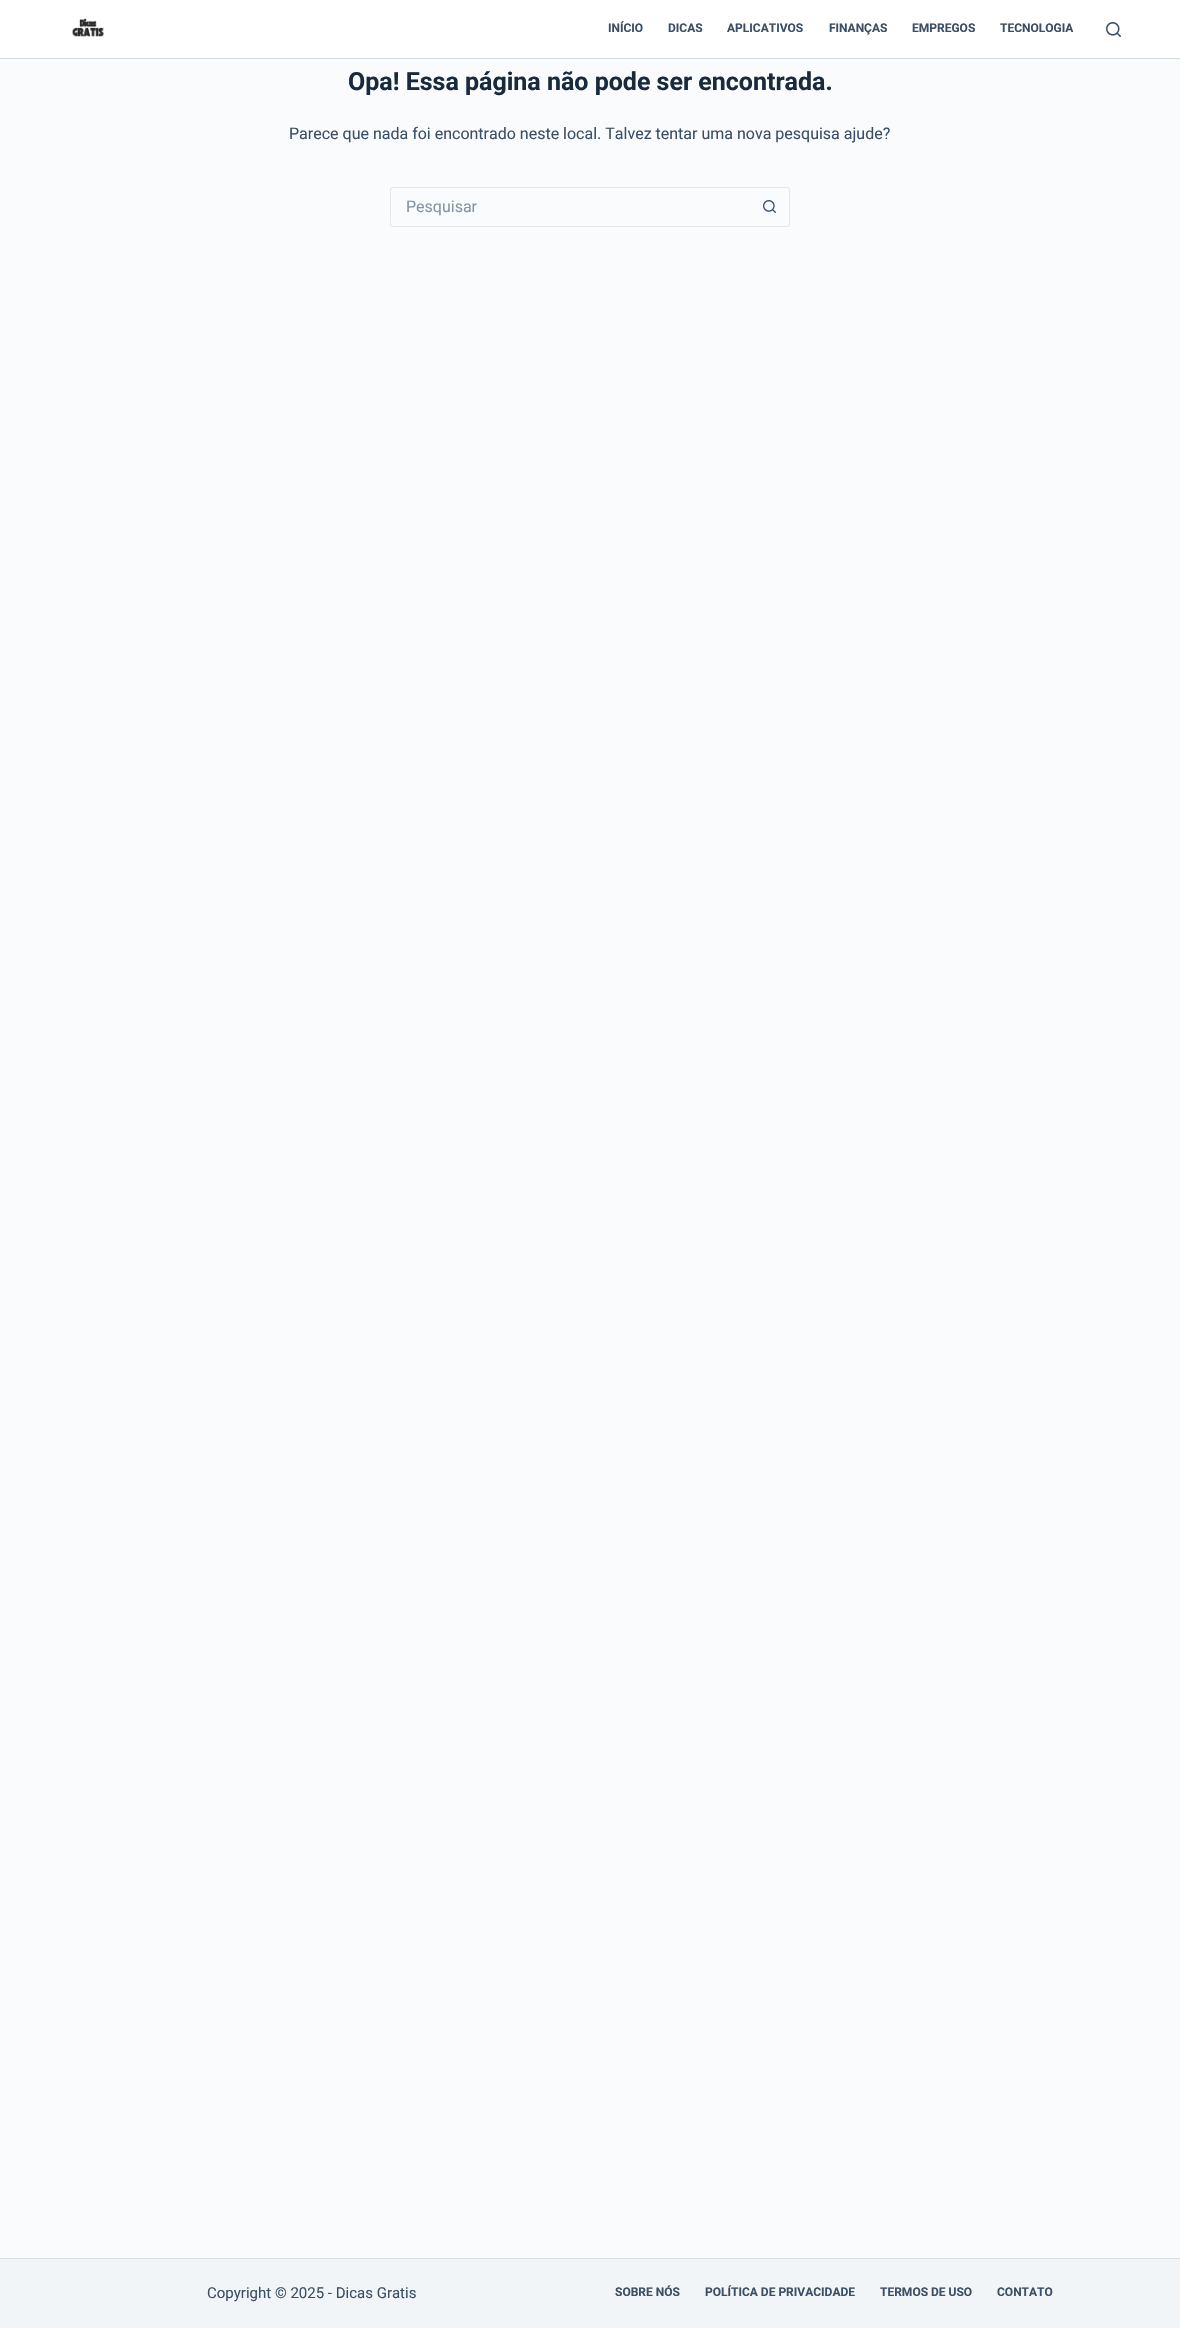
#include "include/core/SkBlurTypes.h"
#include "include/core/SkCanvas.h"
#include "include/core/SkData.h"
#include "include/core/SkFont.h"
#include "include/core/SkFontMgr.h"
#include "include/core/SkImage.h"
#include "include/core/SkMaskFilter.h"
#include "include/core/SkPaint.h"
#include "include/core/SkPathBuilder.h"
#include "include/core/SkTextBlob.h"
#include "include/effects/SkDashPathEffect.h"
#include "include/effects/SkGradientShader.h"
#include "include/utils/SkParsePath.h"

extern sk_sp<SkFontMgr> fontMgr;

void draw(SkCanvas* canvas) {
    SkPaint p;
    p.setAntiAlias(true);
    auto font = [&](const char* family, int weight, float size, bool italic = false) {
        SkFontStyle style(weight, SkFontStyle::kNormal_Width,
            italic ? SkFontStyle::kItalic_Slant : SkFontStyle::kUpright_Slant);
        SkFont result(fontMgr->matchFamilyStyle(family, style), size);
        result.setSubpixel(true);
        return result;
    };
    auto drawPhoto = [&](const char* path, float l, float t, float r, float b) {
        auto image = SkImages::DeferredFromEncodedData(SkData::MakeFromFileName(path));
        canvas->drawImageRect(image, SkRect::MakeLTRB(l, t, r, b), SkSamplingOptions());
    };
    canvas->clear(0xFFFAFBFC);
    p.setColor(0xFFFFFFFF);
    canvas->drawRect(SkRect::MakeLTRB(0, 0, 1180, 58), p);
    p.setColor(0xFFD5D8DC);
    canvas->drawRect(SkRect::MakeLTRB(0, 58, 1180, 59), p);
    drawPhoto("media/1.png", 72, 18, 104, 37);
    auto font1 = font("Roboto", 700, 12);
    p.setColor(0xFF3A4F66);
    {
        const struct { const char* s; float x, y; } items[] = {
            {"INÍCIO", 608, 32},
            {"DICAS", 668, 32},
            {"APLICATIVOS", 727, 32},
            {"FINANÇAS", 829, 32},
            {"EMPREGOS", 912, 32},
            {"TECNOLOGIA", 1000, 32},
        };
        for (auto [s, x, y] : items) {
            canvas->drawString(s, x, y, font1, p);
        }
    }
    drawPhoto("media/2.png", 1106, 22, 1121, 37);
    auto font2 = font("Roboto", 700, 25);
    p.setColor(0xFF192A3D);
    canvas->drawString("Opa! Essa página não pode ser encontrada.", 348, 90, font2, p);
    auto font3 = font("Roboto", 400, 16);
    p.setColor(0xFF3A4F66);
    canvas->drawString("Parece que nada foi encontrado neste local. Talvez tentar uma nova pesquisa ajude?", 289, 139, font3, p);
    p.setColor(0xFFE1E8ED);
    canvas->drawPath(SkPathBuilder(SkPathFillType::kEvenOdd).moveTo(393, 187).lineTo(750, 187).lineTo(750, 227).lineTo(393, 227).cubicTo(391, 227, 390, 226, 390, 224).lineTo(390, 190).cubicTo(390, 188, 391, 187, 393, 187).close().moveTo(393, 188).lineTo(750, 188).lineTo(750, 226).lineTo(392, 226).cubicTo(390, 224, 391, 219, 391, 218).lineTo(391, 190).lineTo(392, 188).close().detach(), p);
    p.setColor(0xFF8794A2);
    canvas->drawString("Pesquisar", 406, 212, font3, p);
    p.setColor(0xFFE1E8ED);
    canvas->drawPath(SkPathBuilder(SkPathFillType::kEvenOdd).moveTo(750, 187).lineTo(787, 187).cubicTo(789, 187, 790, 188, 790, 190).lineTo(790, 224).cubicTo(790, 226, 789, 227, 787, 227).lineTo(750, 227).close().moveTo(750, 188).lineTo(787, 188).cubicTo(788, 188, 789, 189, 789, 190).lineTo(789, 224).cubicTo(789, 225, 788, 226, 787, 226).lineTo(750, 226).close().detach(), p);
    drawPhoto("media/3.png", 763, 200, 776, 213);
    p.setColor(0xFFF2F5F7);
    canvas->drawRect(SkRect::MakeLTRB(0, 2259, 1180, 2328), p);
    p.setColor(0xFFDDDDDD);
    canvas->drawRect(SkRect::MakeLTRB(0, 2258, 1180, 2259), p);
    auto font4 = font("Roboto", 400, 15);
    p.setColor(0xFF3A4F66);
    canvas->drawString("Copyright © 2025 - Dicas Gratis", 207, 2298, font4, p);
    {
        const struct { const char* s; float x, y; } items[] = {
            {"SOBRE NÓS", 615, 2296},
            {"POLÍTICA DE PRIVACIDADE", 705, 2296},
            {"TERMOS DE USO", 880, 2296},
            {"CONTATO", 997, 2296},
        };
        for (auto [s, x, y] : items) {
            canvas->drawString(s, x, y, font1, p);
        }
    }
}
